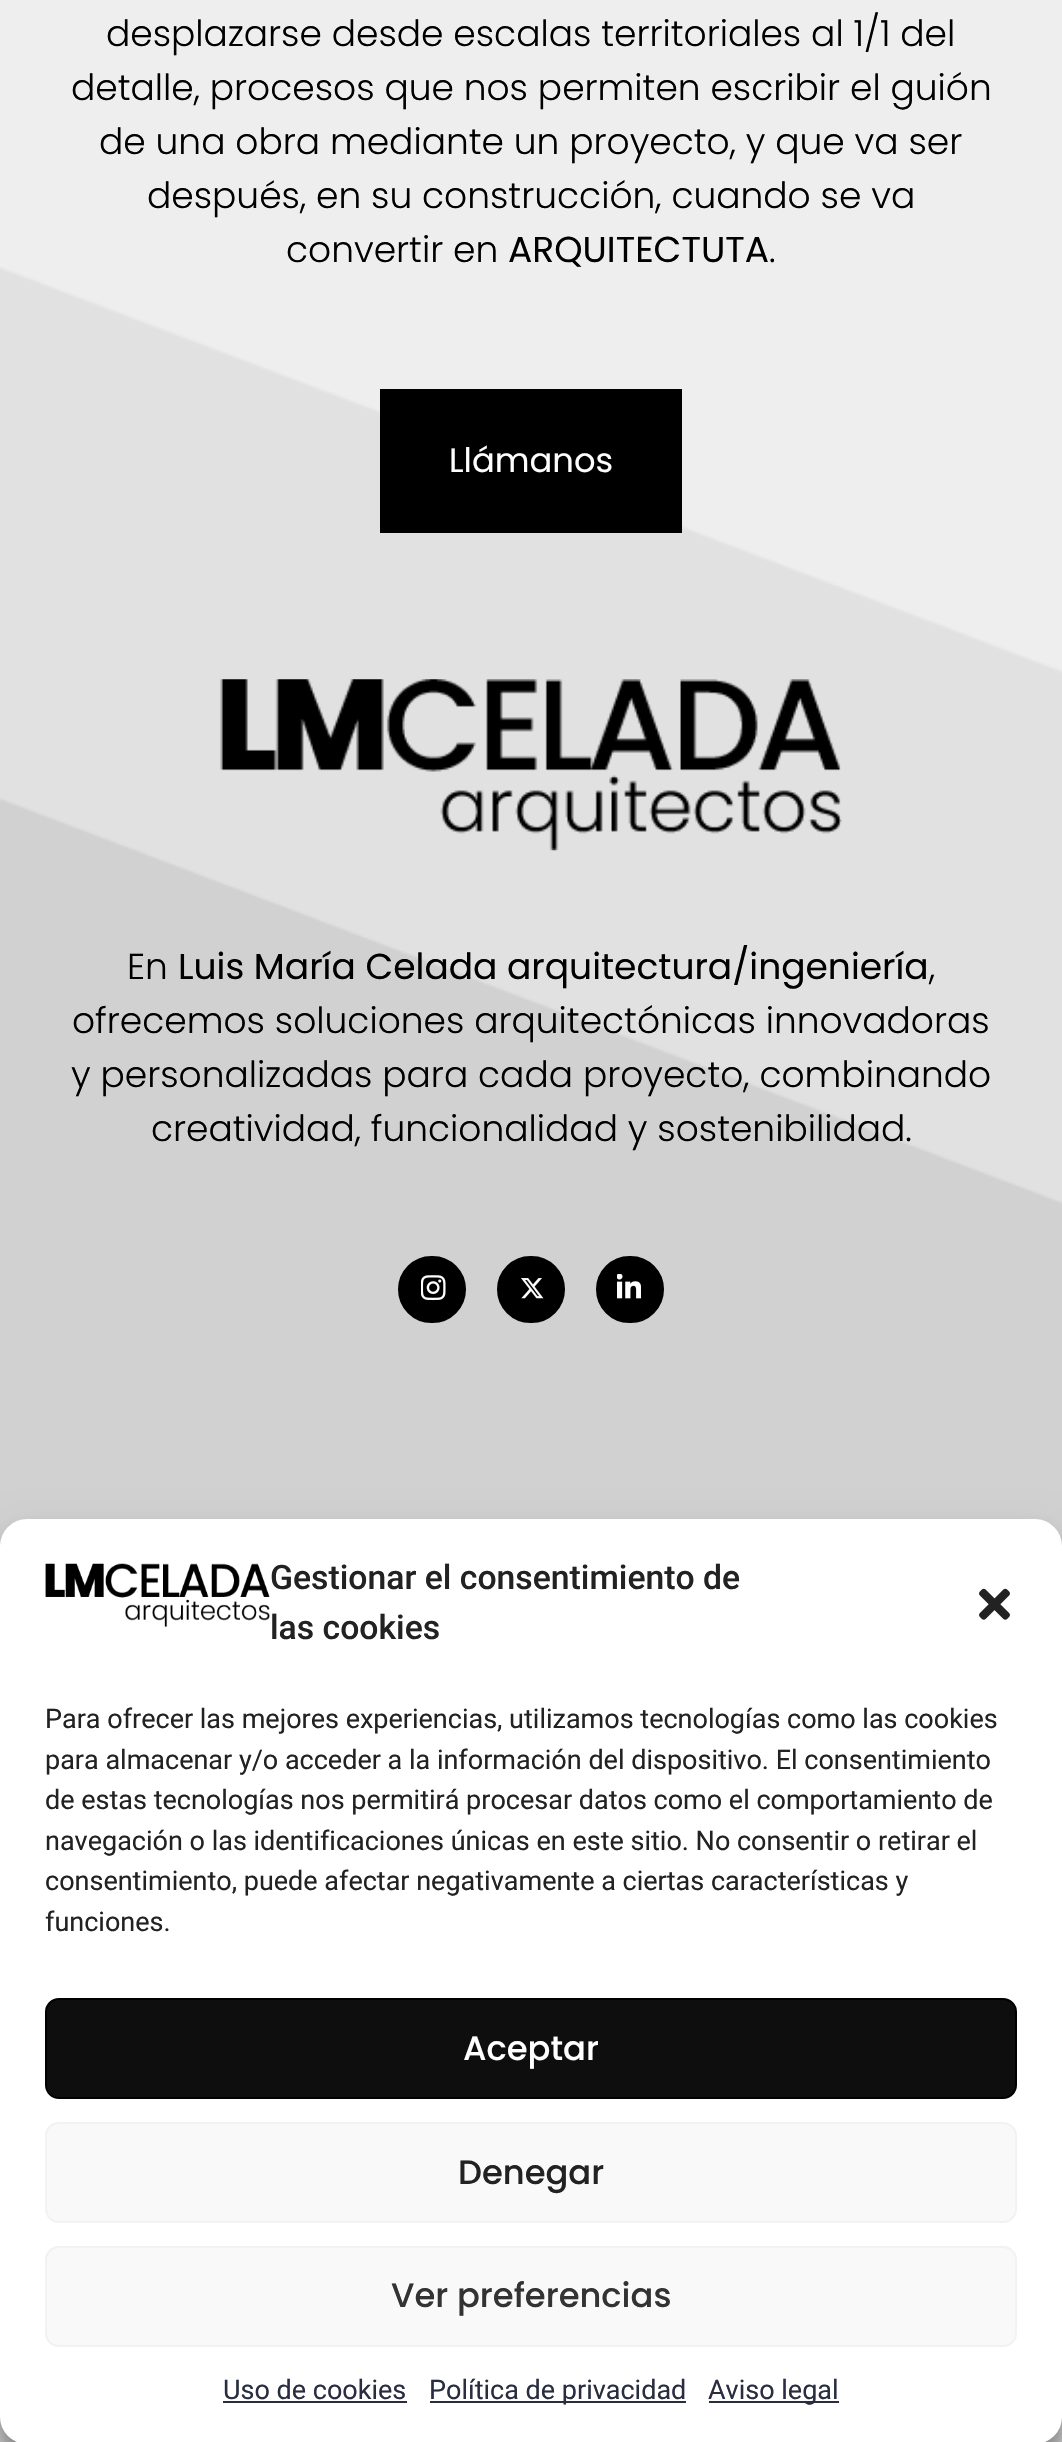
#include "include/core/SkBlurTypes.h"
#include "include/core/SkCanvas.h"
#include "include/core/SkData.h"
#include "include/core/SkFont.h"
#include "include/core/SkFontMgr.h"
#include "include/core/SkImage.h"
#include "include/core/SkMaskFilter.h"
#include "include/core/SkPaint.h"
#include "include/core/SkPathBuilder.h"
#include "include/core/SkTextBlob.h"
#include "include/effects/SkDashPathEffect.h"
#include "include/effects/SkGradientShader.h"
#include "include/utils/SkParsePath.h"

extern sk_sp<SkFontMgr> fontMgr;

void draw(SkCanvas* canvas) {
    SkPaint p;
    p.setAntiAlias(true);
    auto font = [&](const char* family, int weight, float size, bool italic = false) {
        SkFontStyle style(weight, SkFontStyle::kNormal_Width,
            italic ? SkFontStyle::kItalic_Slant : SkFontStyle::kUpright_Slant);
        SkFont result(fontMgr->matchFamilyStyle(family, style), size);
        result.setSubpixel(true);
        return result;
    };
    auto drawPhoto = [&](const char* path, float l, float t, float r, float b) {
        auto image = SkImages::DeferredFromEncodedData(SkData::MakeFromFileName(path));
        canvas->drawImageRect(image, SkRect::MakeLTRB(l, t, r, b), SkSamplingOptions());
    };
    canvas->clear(0xFFEEEEEE);
    drawPhoto("media/1.png", 0, 267, 1062, 2442);
    auto font1 = font("Poppins", 300, 36);
    p.setColor(0xFF000000);
    {
        const struct { const char* s; float x, y; } items[] = {
            {"desplazarse desde escalas territoriales al 1/1 del", 106, 46},
            {"detalle, procesos que nos permiten escribir el guión", 71, 100},
            {"de una obra mediante un proyecto, y que va ser", 99, 154},
            {"después, en su construcción, cuando se va", 147, 208},
            {"convertir en", 286, 262},
        };
        for (auto [s, x, y] : items) {
            canvas->drawString(s, x, y, font1, p);
        }
    }
    auto font2 = font("Poppins", 400, 36);
    canvas->drawString("ARQUITECTUTA", 508, 262, font2, p);
    canvas->drawString(".", 769, 262, font1, p);
    canvas->drawRect(SkRect::MakeLTRB(380, 389, 682, 533), p);
    auto font3 = font("Poppins", 400, 33.75f);
    p.setColor(0xFFFFFFFF);
    canvas->drawString("Llámanos", 449, 472, font3, p);
    drawPhoto("media/2.png", 220, 679, 842, 851);
    p.setColor(0xFF000000);
    canvas->drawString("En", 127, 979, font1, p);
    canvas->drawString("Luis María Celada arquitectura/ingeniería", 178, 979, font2, p);
    {
        const struct { const char* s; float x, y; } items[] = {
            {",", 929, 979},
            {"ofrecemos soluciones arquitectónicas innovadoras", 72, 1033},
            {"y personalizadas para cada proyecto, combinando", 71, 1087},
            {"creatividad, funcionalidad y sostenibilidad.", 151, 1141},
        };
        for (auto [s, x, y] : items) {
            canvas->drawString(s, x, y, font1, p);
        }
    }
    canvas->drawRoundRect(SkRect::MakeLTRB(399, 1257, 465, 1322), 32.5f, 32.5f, p);
    p.setStyle(SkPaint::kStroke_Style);
    p.setStrokeWidth(2);
    canvas->drawRoundRect(SkRect::MakeLTRB(399, 1257, 465, 1322), 32.5f, 32.5f, p);
    drawPhoto("media/3.png", 421, 1275, 446, 1301);
    p.setStyle(SkPaint::kFill_Style);
    canvas->drawRoundRect(SkRect::MakeLTRB(498, 1257, 564, 1322), 32.5f, 32.5f, p);
    p.setStyle(SkPaint::kStroke_Style);
    canvas->drawRoundRect(SkRect::MakeLTRB(498, 1257, 564, 1322), 32.5f, 32.5f, p);
    drawPhoto("media/4.png", 521, 1278, 544, 1299);
    p.setStyle(SkPaint::kFill_Style);
    canvas->drawRoundRect(SkRect::MakeLTRB(597, 1257, 663, 1322), 32.5f, 32.5f, p);
    p.setStyle(SkPaint::kStroke_Style);
    canvas->drawRoundRect(SkRect::MakeLTRB(597, 1257, 663, 1322), 32.5f, 32.5f, p);
    drawPhoto("media/5.png", 617, 1274, 641, 1299);
    p.setStyle(SkPaint::kFill_Style);
    p.setColor(0x3B000000);
    p.setMaskFilter(SkMaskFilter::MakeBlur(kNormal_SkBlurStyle, 7));
    canvas->drawRoundRect(SkRect::MakeLTRB(0, 1532, 1062, 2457), 27, 27, p);
    p.setMaskFilter(nullptr);
    p.setColor(0x30000000);
    p.setMaskFilter(SkMaskFilter::MakeBlur(kNormal_SkBlurStyle, 22.5f));
    canvas->drawRoundRect(SkRect::MakeLTRB(0, 1541, 1062, 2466), 27, 27, p);
    p.setMaskFilter(nullptr);
    p.setColor(0xFFFFFFFF);
    canvas->drawRoundRect(SkRect::MakeLTRB(0, 1519, 1062, 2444), 27, 27, p);
    drawPhoto("media/6.png", 45, 1563, 270, 1627);
    auto font4 = font("Roboto", 500, 33.75f);
    p.setColor(0xFF222222);
    canvas->drawString("Gestionar el consentimiento de", 270, 1589, font4, p);
    canvas->drawString("las cookies", 270, 1639, font4, p);
    drawPhoto("media/7.png", 979, 1588, 1010, 1620);
    auto font5 = font("Roboto", 400, 27);
    {
        const struct { const char* s; float x, y; } items[] = {
            {"Para ofrecer las mejores experiencias, utilizamos tecnologías como las cookies", 45, 1728},
            {"para almacenar y/o acceder a la información del dispositivo. El consentimiento", 45, 1769},
            {"de estas tecnologías nos permitirá procesar datos como el comportamiento de", 45, 1809},
            {"navegación o las identificaciones únicas en este sitio. No consentir o retirar el", 45, 1850},
            {"consentimiento, puede afectar negativamente a ciertas características y", 45, 1890},
            {"funciones.", 45, 1931},
        };
        for (auto [s, x, y] : items) {
            canvas->drawString(s, x, y, font5, p);
        }
    }
    p.setColor(0xFF0E0E0E);
    canvas->drawRoundRect(SkRect::MakeLTRB(46, 1999, 1016, 2098), 13, 13, p);
    p.setStyle(SkPaint::kStroke_Style);
    p.setColor(0xFF000000);
    canvas->drawRoundRect(SkRect::MakeLTRB(46, 1999, 1016, 2098), 13, 13, p);
    auto font6 = font("Poppins", 500, 33.75f);
    p.setStyle(SkPaint::kFill_Style);
    p.setColor(0xFFFFFFFF);
    canvas->drawString("Aceptar", 463, 2060, font6, p);
    p.setColor(0xFFF9F9F9);
    canvas->drawRoundRect(SkRect::MakeLTRB(46, 2123, 1016, 2222), 13, 13, p);
    p.setStyle(SkPaint::kStroke_Style);
    p.setColor(0xFFF2F2F2);
    canvas->drawRoundRect(SkRect::MakeLTRB(46, 2123, 1016, 2222), 13, 13, p);
    p.setStyle(SkPaint::kFill_Style);
    p.setColor(0xFF222222);
    canvas->drawString("Denegar", 458, 2184, font6, p);
    p.setColor(0xFFF9F9F9);
    canvas->drawRoundRect(SkRect::MakeLTRB(46, 2247, 1016, 2346), 13, 13, p);
    p.setStyle(SkPaint::kStroke_Style);
    p.setColor(0xFFF2F2F2);
    canvas->drawRoundRect(SkRect::MakeLTRB(46, 2247, 1016, 2346), 13, 13, p);
    p.setStyle(SkPaint::kFill_Style);
    p.setColor(0xFF333333);
    canvas->drawString("Ver preferencias", 391, 2307, font6, p);
    p.setColor(0xFF282E3F);
    canvas->drawString("Uso de cookies", 223, 2399, font5, p);
    canvas->drawRect(SkRect::MakeLTRB(223, 2401, 407, 2403), p);
    canvas->drawRect(SkRect::MakeLTRB(430, 2401, 686, 2403), p);
    canvas->drawString("Política de privacidad", 429, 2399, font5, p);
    canvas->drawRect(SkRect::MakeLTRB(709, 2401, 839, 2403), p);
    canvas->drawString("Aviso legal", 708, 2399, font5, p);
}
